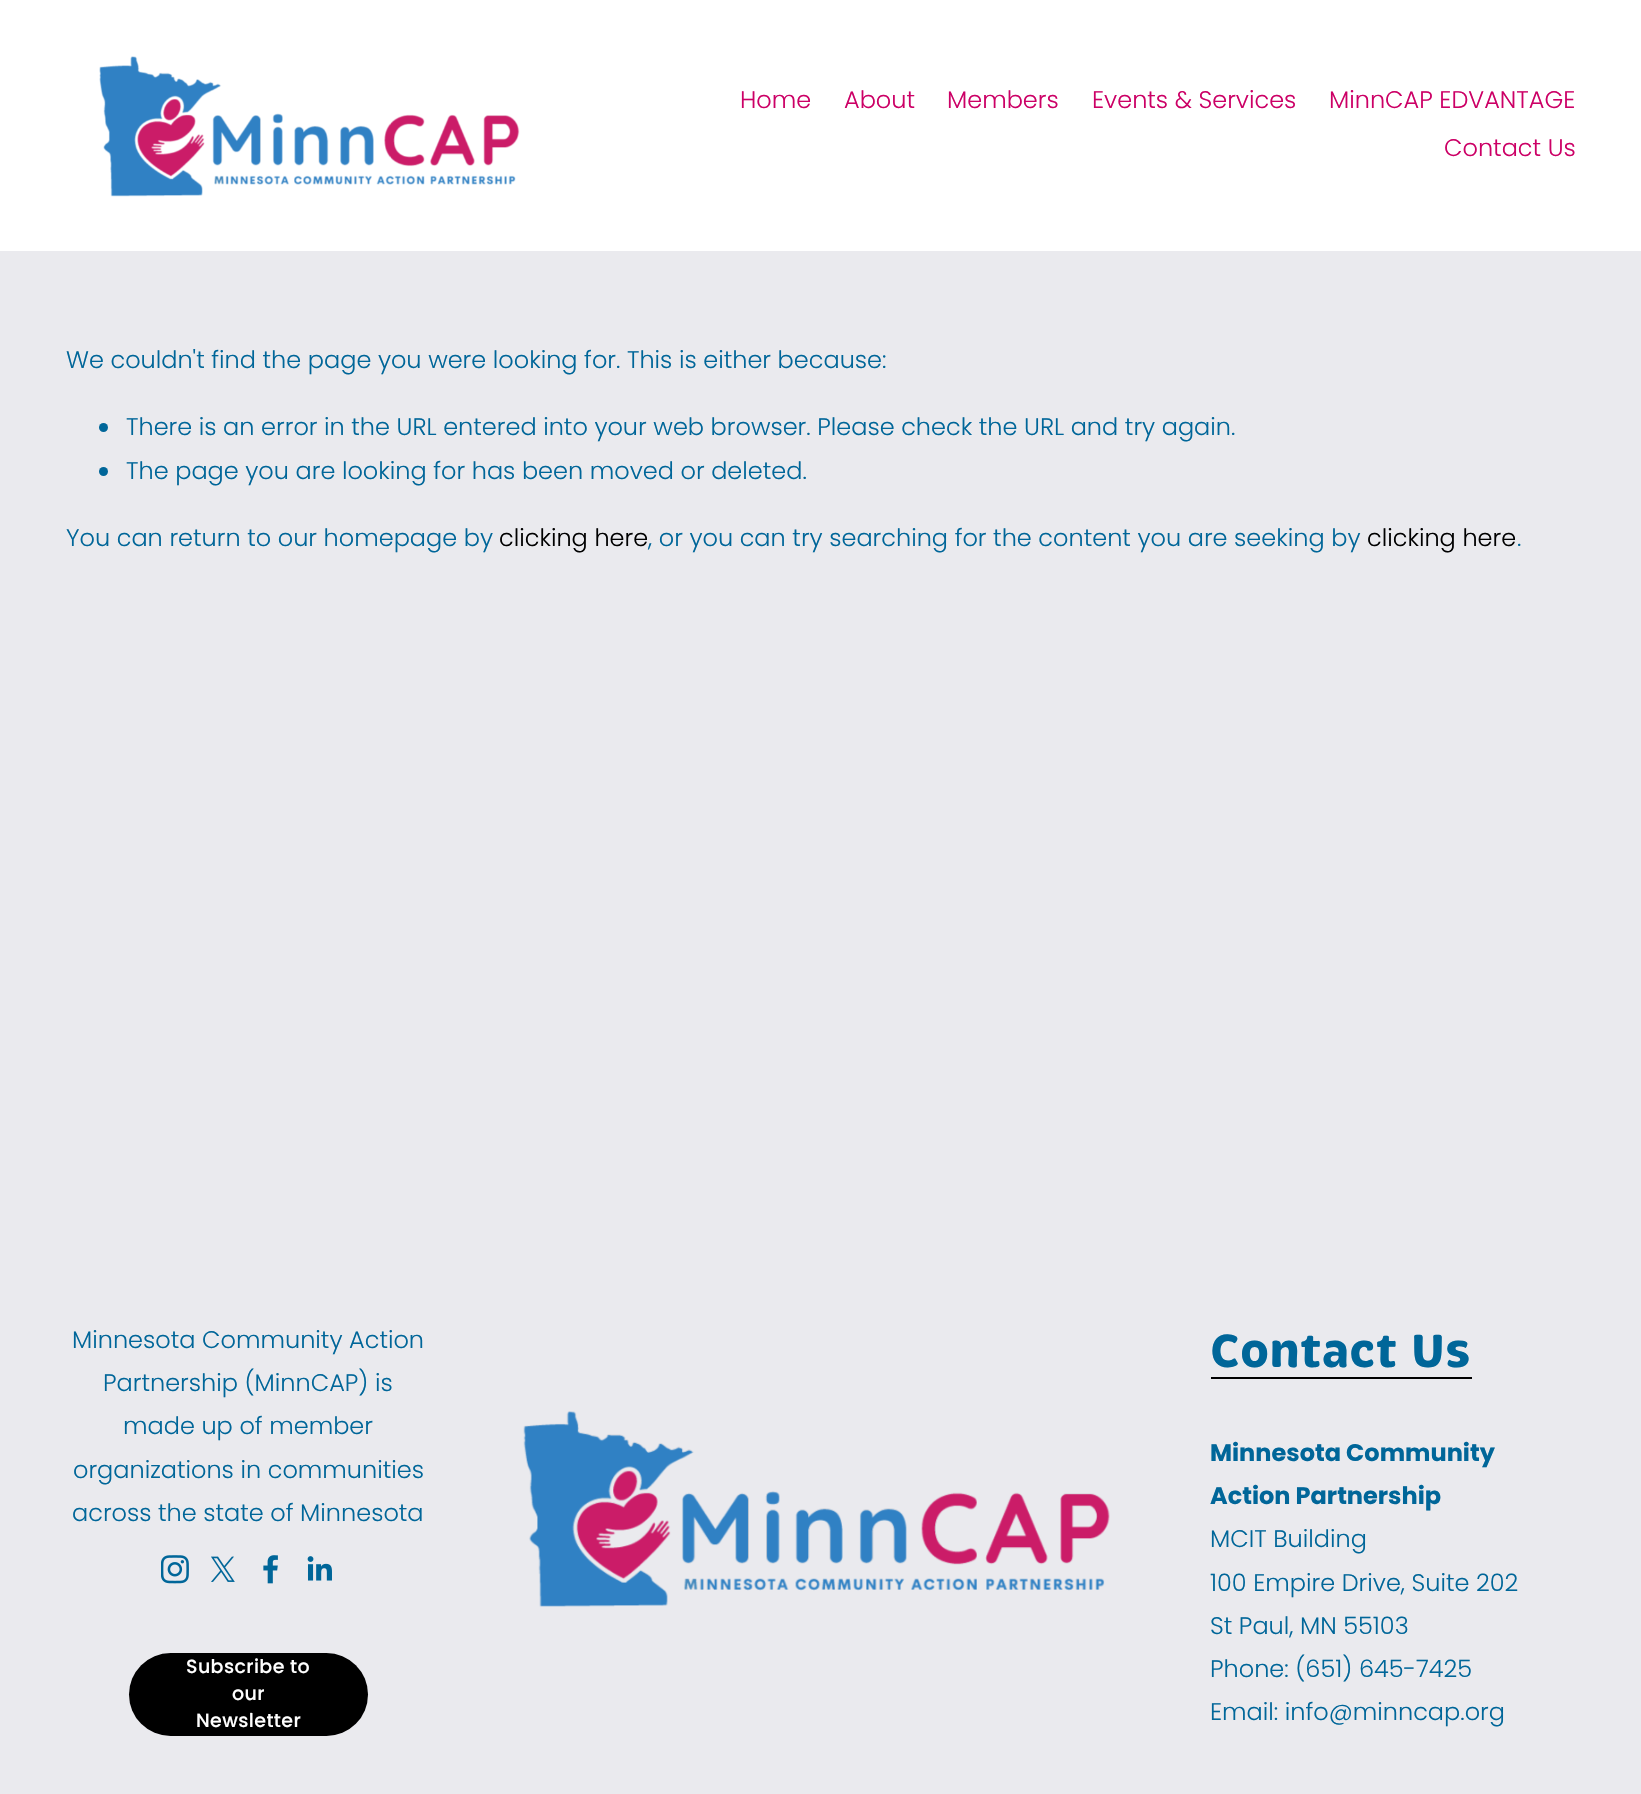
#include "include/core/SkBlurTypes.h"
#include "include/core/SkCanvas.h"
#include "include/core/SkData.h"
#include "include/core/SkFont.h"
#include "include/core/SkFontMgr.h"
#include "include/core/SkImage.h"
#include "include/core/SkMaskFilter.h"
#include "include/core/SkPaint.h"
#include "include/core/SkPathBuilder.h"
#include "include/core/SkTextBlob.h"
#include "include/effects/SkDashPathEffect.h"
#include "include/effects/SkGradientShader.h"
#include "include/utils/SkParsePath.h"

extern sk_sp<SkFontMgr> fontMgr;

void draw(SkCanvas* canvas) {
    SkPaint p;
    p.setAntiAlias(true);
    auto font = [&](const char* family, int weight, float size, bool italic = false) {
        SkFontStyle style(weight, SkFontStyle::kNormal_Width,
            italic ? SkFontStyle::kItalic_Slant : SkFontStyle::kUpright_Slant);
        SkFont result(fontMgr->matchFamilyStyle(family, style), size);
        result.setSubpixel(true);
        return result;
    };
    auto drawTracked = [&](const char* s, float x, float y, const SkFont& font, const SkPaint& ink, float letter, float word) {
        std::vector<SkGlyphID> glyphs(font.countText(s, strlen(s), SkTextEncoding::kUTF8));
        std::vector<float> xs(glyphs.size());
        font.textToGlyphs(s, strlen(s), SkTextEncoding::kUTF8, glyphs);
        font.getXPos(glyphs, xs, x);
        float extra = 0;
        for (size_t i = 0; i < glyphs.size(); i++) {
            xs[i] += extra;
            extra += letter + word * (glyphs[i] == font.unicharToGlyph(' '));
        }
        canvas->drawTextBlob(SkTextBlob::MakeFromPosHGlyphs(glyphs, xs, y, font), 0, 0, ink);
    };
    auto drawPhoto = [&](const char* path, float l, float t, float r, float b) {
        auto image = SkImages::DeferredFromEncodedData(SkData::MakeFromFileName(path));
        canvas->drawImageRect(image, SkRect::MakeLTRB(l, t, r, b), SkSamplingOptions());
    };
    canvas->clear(0xFFEAEAEE);
    p.setColor(0xFFFFFFFF);
    canvas->drawRect(SkRect::MakeLTRB(0, 0, 1641, 251), p);
    drawPhoto("media/1.png", 99, 56, 520, 197);
    auto font1 = font("Poppins", 300, 24);
    p.setColor(0xFFCC0066);
    {
        const struct { const char* s; float x, y; } items[] = {
            {"Home", 740, 108},
            {"About", 844, 108},
            {"Members", 947, 108},
            {"Events & Services", 1092, 108},
            {"MinnCAP EDVANTAGE", 1329, 108},
            {"Contact Us", 1444, 156},
        };
        for (auto [s, x, y] : items) {
            canvas->drawString(s, x, y, font1, p);
        }
    }
    p.setColor(0xFF006699);
    canvas->drawString("We couldn't find the page you were looking for. This is either because:", 66, 368, font1, p);
    canvas->drawCircle(103.5f, 427.5f, 4.5f, p);
    canvas->drawString("There is an error in the URL entered into your web browser. Please check the URL and try again.", 126, 435, font1, p);
    canvas->drawCircle(103.5f, 471.5f, 4.5f, p);
    canvas->drawString("The page you are looking for has been moved or deleted.", 126, 479, font1, p);
    canvas->drawString("You can return to our homepage by", 66, 546, font1, p);
    p.setColor(0xFF000000);
    canvas->drawString("clicking here", 499, 546, font1, p);
    p.setColor(0xFF006699);
    canvas->drawString(", or you can try searching for the content you are seeking by", 648, 546, font1, p);
    p.setColor(0xFF000000);
    canvas->drawString("clicking here", 1367, 546, font1, p);
    p.setColor(0xFF006699);
    {
        const struct { const char* s; float x, y; } items[] = {
            {".", 1517, 546},
            {"Minnesota Community Action", 72, 1348},
            {"Partnership (MinnCAP) is", 103, 1391},
            {"made up of member", 123, 1434},
            {"organizations in communities", 73, 1478},
            {"across the state of Minnesota", 72, 1521},
        };
        for (auto [s, x, y] : items) {
            canvas->drawString(s, x, y, font1, p);
        }
    }
    drawPhoto("media/2.png", 523, 1411, 1110, 1607);
    auto font2 = font("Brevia", 700, 47.5f);
    canvas->drawString("Contact Us", 1210, 1367, font2, p);
    p.setColor(0xFF000000);
    canvas->drawRect(SkRect::MakeLTRB(1211, 1377, 1472, 1379), p);
    auto font3 = font("Poppins", 700, 24);
    p.setColor(0xFF006699);
    canvas->drawString("Minnesota Community", 1210, 1461, font3, p);
    canvas->drawString("Action Partnership", 1210, 1504, font3, p);
    {
        const struct { const char* s; float x, y; } items[] = {
            {"MCIT Building", 1210, 1547},
            {"100 Empire Drive, Suite 202", 1210, 1591},
            {"St Paul, MN 55103", 1210, 1634},
            {"Phone: (651) 645-7425", 1210, 1677},
            {"Email: info@minncap.org", 1210, 1720},
        };
        for (auto [s, x, y] : items) {
            canvas->drawString(s, x, y, font1, p);
        }
    }
    drawPhoto("media/3.png", 161, 1555, 189, 1584);
    drawPhoto("media/4.png", 211, 1556, 235, 1582);
    drawPhoto("media/5.png", 263, 1555, 278, 1584);
    drawPhoto("media/6.png", 307, 1556, 332, 1581);
    p.setColor(0xFF000000);
    canvas->drawRoundRect(SkRect::MakeLTRB(129, 1653, 368, 1736), 41.5f, 41.5f, p);
    auto font4 = font("Poppins", 500, 19);
    p.setColor(0xFFFFFFFF);
    {
        const struct { const char* s; float x, y; } items[] = {
            {"Subscribe to", 186, 1673},
            {"our", 232, 1700},
            {"Newsletter", 196, 1727},
        };
        for (auto [s, x, y] : items) {
            drawTracked(s, x, y, font4, p, 0.4f, 0);
        }
    }
}
